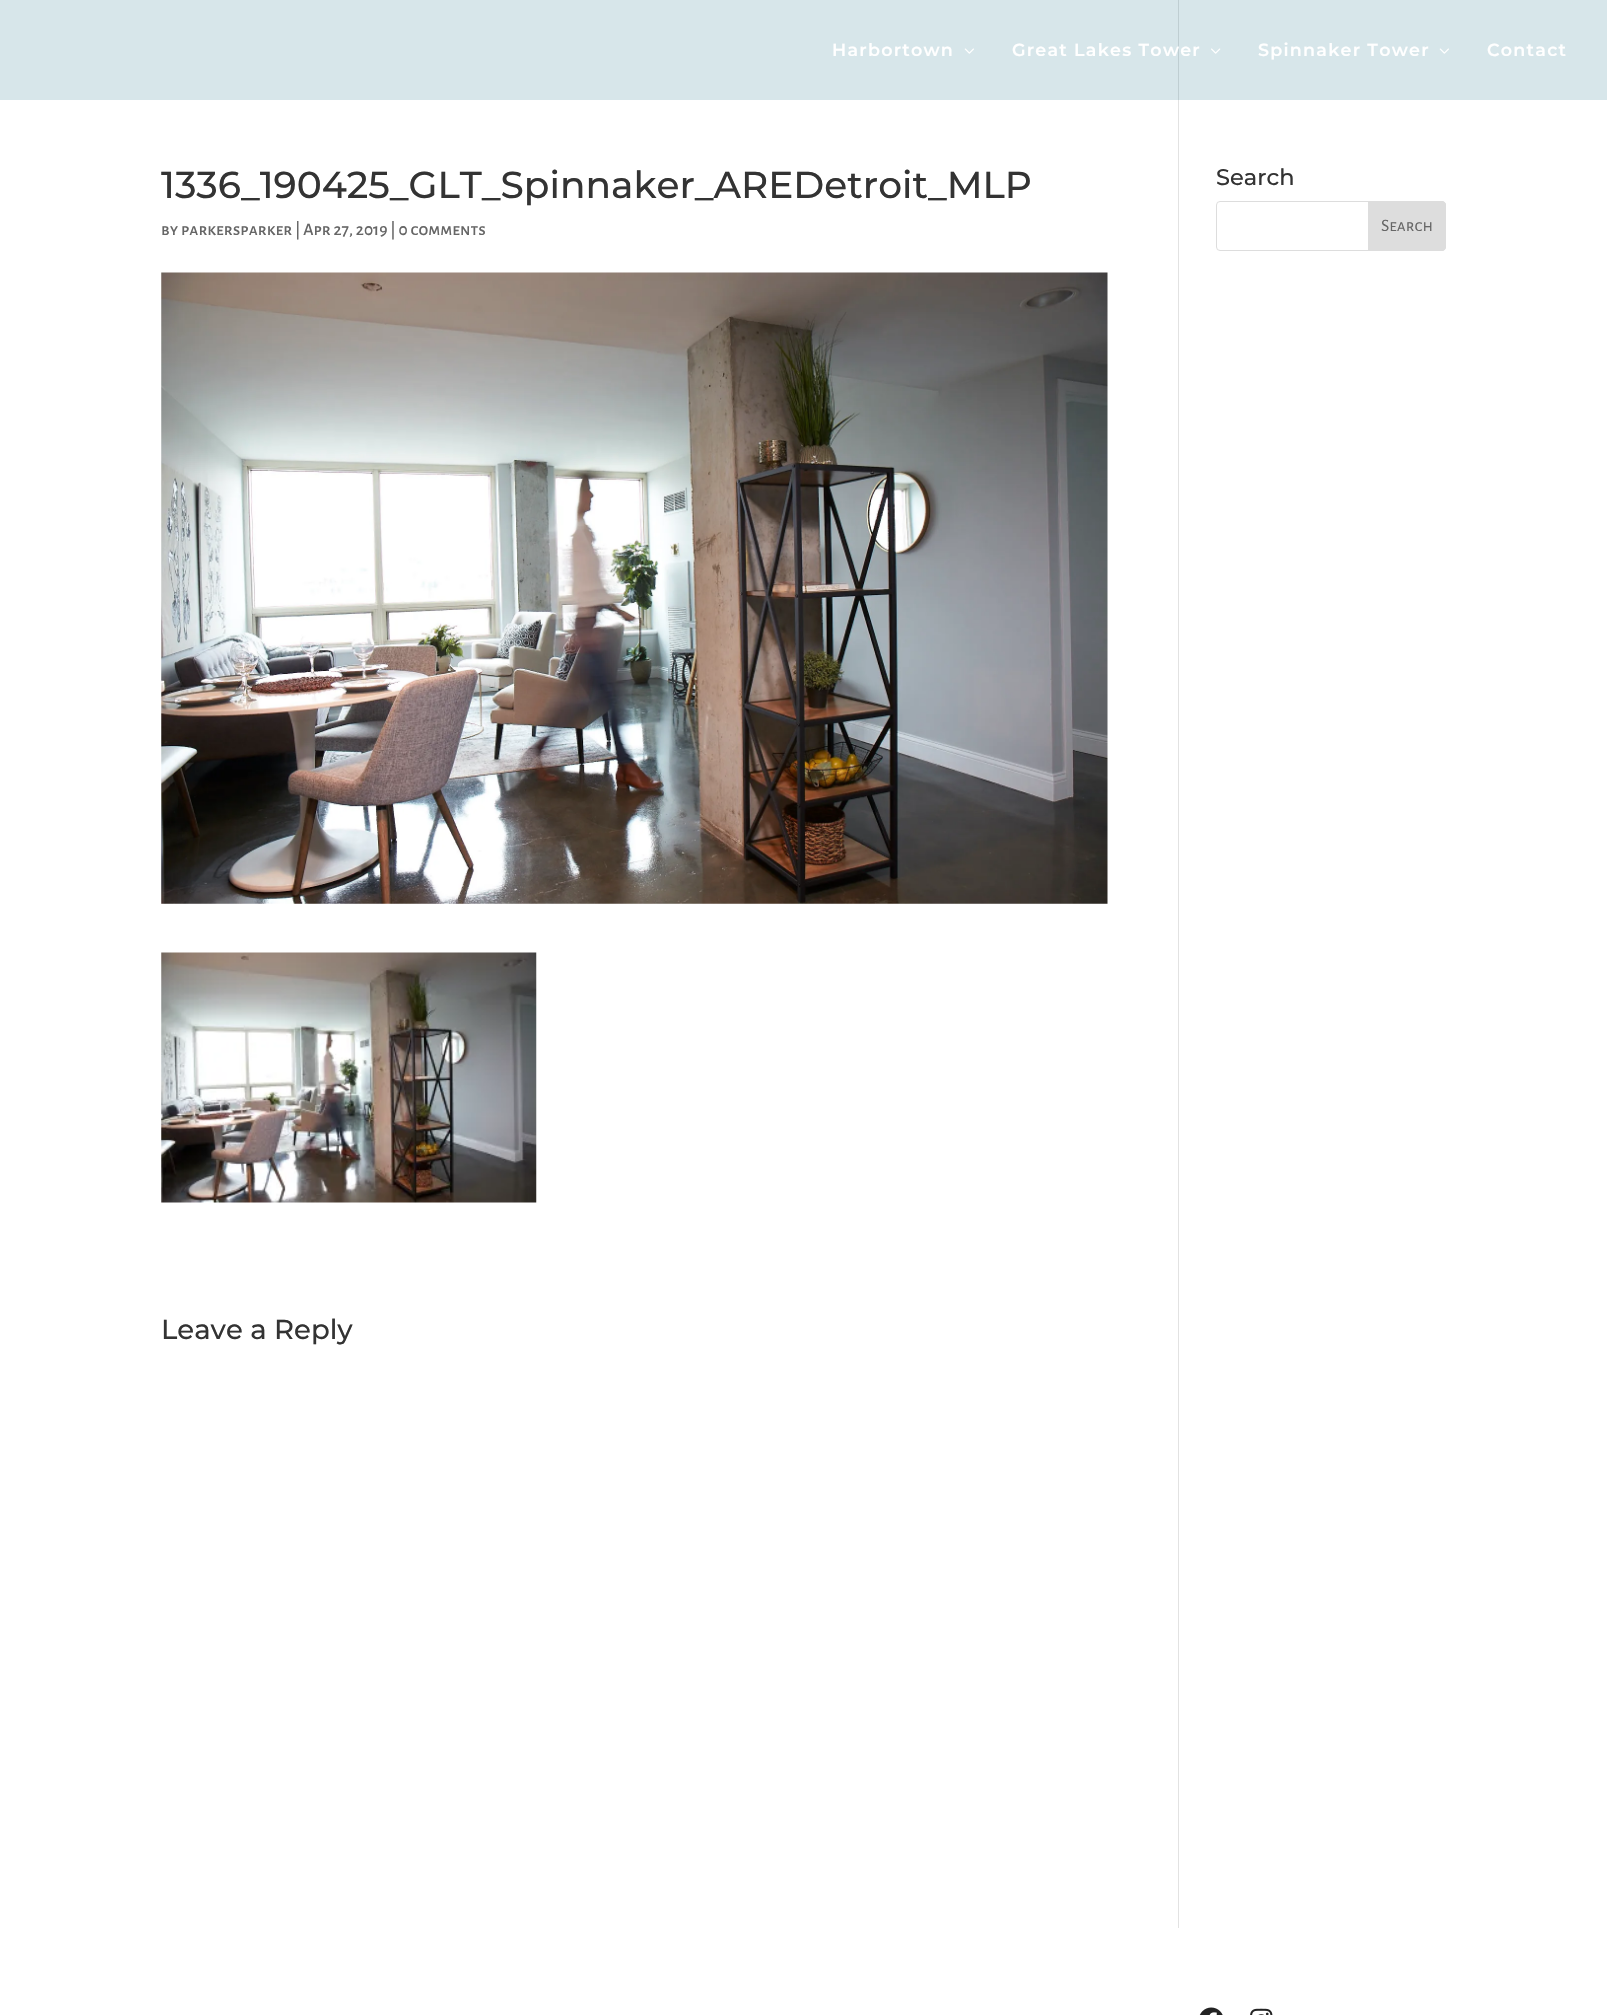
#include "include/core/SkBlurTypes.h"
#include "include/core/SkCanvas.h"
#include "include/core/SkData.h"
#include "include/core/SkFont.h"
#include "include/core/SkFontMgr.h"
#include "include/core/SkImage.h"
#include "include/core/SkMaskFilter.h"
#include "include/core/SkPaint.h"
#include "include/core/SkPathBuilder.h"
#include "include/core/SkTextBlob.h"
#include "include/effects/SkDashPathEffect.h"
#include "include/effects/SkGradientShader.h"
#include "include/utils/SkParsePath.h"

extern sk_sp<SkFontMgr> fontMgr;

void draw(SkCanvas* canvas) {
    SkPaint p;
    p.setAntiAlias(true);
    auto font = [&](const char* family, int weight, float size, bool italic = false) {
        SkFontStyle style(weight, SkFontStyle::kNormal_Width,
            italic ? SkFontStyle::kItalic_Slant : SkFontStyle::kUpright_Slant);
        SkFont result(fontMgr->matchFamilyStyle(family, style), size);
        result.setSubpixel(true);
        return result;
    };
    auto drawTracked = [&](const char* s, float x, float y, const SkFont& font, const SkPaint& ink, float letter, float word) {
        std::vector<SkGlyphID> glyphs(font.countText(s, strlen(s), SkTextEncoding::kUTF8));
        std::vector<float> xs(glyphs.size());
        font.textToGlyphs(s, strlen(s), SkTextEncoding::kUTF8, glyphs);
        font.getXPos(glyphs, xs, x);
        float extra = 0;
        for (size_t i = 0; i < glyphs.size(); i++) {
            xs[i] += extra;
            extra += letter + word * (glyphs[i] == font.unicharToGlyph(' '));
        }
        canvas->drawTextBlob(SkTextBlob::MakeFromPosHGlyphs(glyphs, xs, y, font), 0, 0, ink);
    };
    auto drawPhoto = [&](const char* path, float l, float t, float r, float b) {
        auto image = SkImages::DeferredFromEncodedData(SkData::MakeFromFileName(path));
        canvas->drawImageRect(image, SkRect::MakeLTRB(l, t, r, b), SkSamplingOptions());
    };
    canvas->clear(0xFFFFFFFF);
    p.setColor(0xFFD7E6EA);
    canvas->drawRect(SkRect::MakeLTRB(0, 0, 1607, 100), p);
    auto font1 = font("Montserrat", 600, 17.5f);
    p.setColor(0xFFFFFFFF);
    drawTracked("Harbortown", 832, 56, font1, p, 1.25f, 0);
    drawPhoto("media/1.png", 964, 48, 974, 54);
    p.setColor(0xFFBFCED2);
    canvas->drawRect(SkRect::MakeLTRB(1178, 0, 1179, 100), p);
    p.setColor(0xFFFFFFFF);
    drawTracked("Great Lakes Tower", 1012, 56, font1, p, 1.25f, 0);
    drawPhoto("media/2.png", 1211, 48, 1221, 54);
    drawTracked("Spinnaker Tower", 1258, 56, font1, p, 1.25f, 0);
    drawPhoto("media/1.png", 1439, 48, 1449, 54);
    drawTracked("Contact", 1487, 56, font1, p, 1.25f, 0);
    p.setColor(0xFFE2E2E2);
    canvas->drawRect(SkRect::MakeLTRB(1178, 100, 1179, 1928), p);
    auto font2 = font("Montserrat", 500, 37.5f);
    p.setColor(0xFF333333);
    canvas->drawString("1336_190425_GLT_Spinnaker_AREDetroit_MLP", 161, 198, font2, p);
    auto font3 = font("Alegreya Sans SC", 500, 17.5f);
    p.setColor(0xFF666666);
    canvas->drawString("by parkersparker | Apr 27, 2019 | 0 comments", 161, 235, font3, p);
    drawPhoto("media/3.png", 161, 272, 1108, 904);
    drawPhoto("media/4.png", 161, 952, 537, 1203);
    auto font4 = font("Montserrat", 500, 27.5f);
    p.setColor(0xFF333333);
    canvas->drawString("Leave a Reply", 161, 1339, font4, p);
    auto font5 = font("Montserrat", 500, 22.5f);
    canvas->drawString("Search", 1216, 185, font5, p);
    p.setStyle(SkPaint::kStroke_Style);
    p.setStrokeWidth(1);
    p.setColor(0xFFDDDDDD);
    canvas->drawRoundRect(SkRect::MakeLTRB(1216.5f, 201.5f, 1445.5f, 250.5f), 3.5f, 3.5f, p);
    p.setStyle(SkPaint::kFill_Style);
    canvas->drawPath(SkPathBuilder().moveTo(1368.5f, 201.5f).lineTo(1442, 201.5f).cubicTo(1444, 201.5f, 1445.5f, 203, 1445.5f, 205).lineTo(1445.5f, 247).cubicTo(1445.5f, 249, 1444, 250.5f, 1442, 250.5f).lineTo(1368.5f, 250.5f).close().detach(), p);
    p.setStyle(SkPaint::kStroke_Style);
    canvas->drawPath(SkPathBuilder().moveTo(1368.5f, 201.5f).lineTo(1442, 201.5f).cubicTo(1444, 201.5f, 1445.5f, 203, 1445.5f, 205).lineTo(1445.5f, 247).cubicTo(1445.5f, 249, 1444, 250.5f, 1442, 250.5f).lineTo(1368.5f, 250.5f).close().detach(), p);
    auto font6 = font("Alegreya Sans SC", 400, 17.5f);
    p.setStyle(SkPaint::kFill_Style);
    p.setColor(0xFF666666);
    canvas->drawString("Search", 1381, 231, font6, p);
    drawPhoto("media/5.png", 1199, 2007, 1223, 2015);
    drawPhoto("media/6.png", 1250, 2008, 1273, 2015);
}
